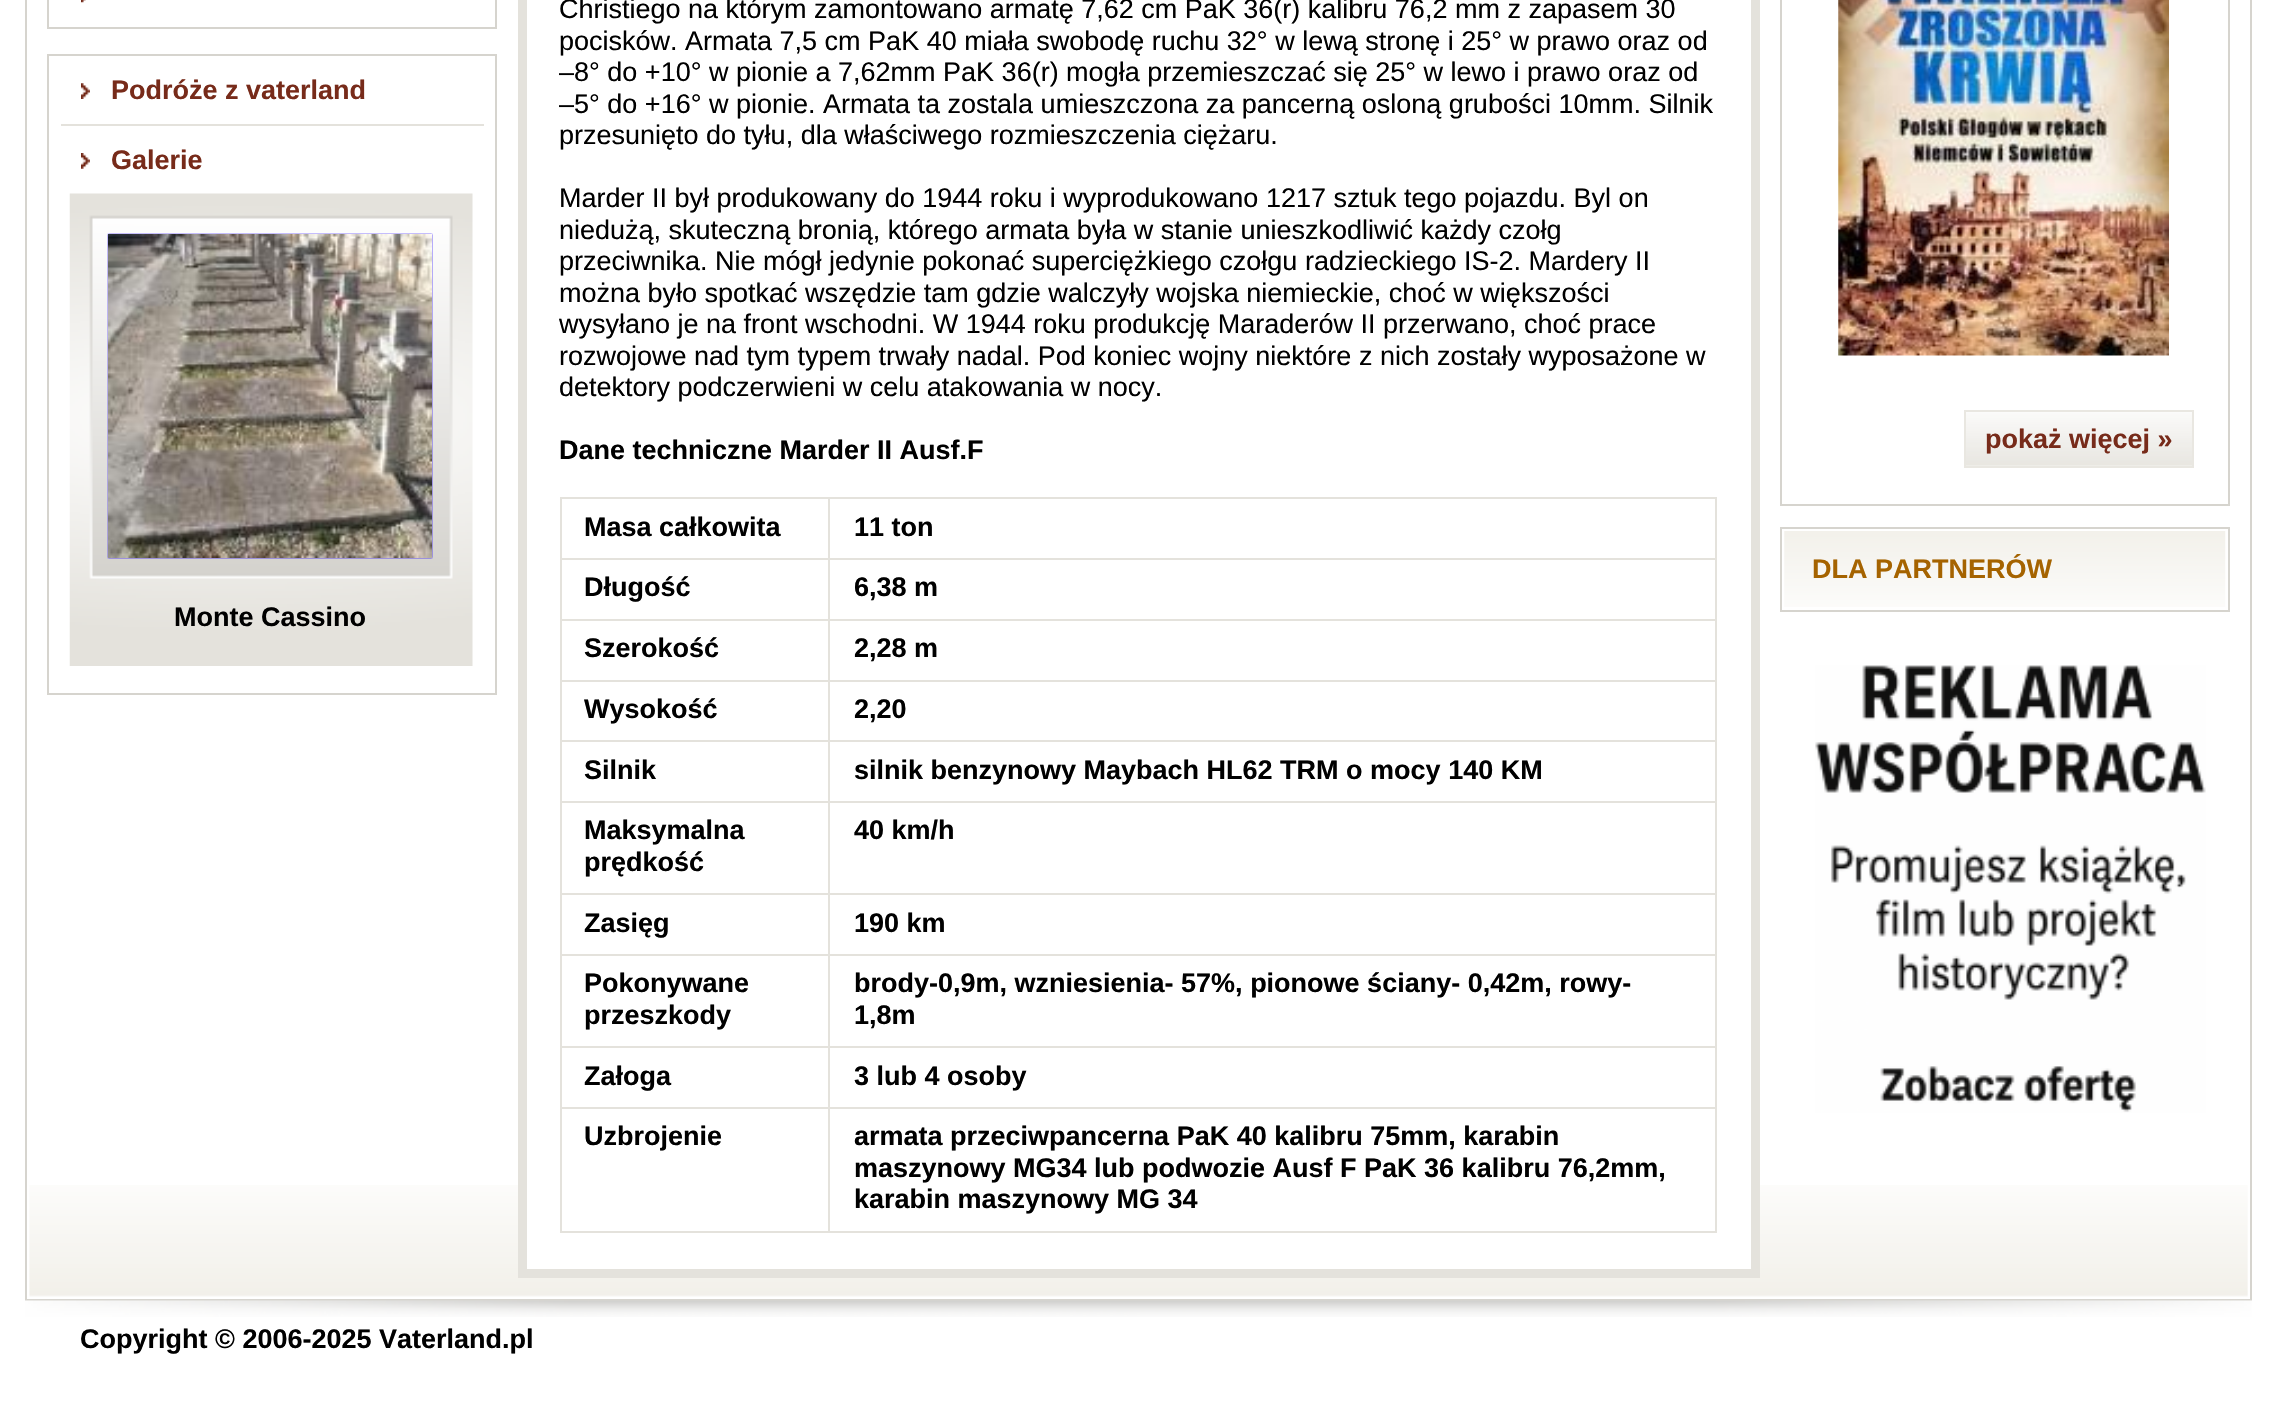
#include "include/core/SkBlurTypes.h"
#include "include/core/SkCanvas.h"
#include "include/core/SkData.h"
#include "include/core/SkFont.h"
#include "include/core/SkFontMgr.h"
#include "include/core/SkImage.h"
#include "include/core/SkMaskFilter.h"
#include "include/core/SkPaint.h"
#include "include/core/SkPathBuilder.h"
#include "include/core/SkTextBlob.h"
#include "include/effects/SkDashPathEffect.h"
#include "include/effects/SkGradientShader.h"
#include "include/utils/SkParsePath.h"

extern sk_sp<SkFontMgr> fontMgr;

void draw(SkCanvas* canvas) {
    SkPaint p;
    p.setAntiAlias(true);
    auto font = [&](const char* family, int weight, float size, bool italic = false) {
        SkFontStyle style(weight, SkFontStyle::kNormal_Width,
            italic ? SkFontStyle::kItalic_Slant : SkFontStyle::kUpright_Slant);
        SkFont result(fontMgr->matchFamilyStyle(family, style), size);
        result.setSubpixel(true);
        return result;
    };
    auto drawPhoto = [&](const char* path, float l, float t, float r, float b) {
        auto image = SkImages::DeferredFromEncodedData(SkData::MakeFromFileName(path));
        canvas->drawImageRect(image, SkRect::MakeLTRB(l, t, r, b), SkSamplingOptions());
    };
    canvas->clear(0xFFFFFFFF);
    drawPhoto("media/1.png", 29, 1185, 2248, 1297);
    p.setStyle(SkPaint::kStroke_Style);
    p.setStrokeWidth(2);
    p.setColor(0xFFD6D4CE);
    canvas->drawRect(SkRect::MakeLTRB(26, -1, 2251, 1300), p);
    canvas->drawRect(SkRect::MakeLTRB(48, -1, 496, 694), p);
    drawPhoto("media/2.png", 81, 0, 86, 3);
    p.setStyle(SkPaint::kFill_Style);
    {
        const struct { float l, t, r, b; SkColor color; } items[] = {
            {47, 29, 497, 54, 0xFFFFFFFF},
            {47, 27, 497, 29, 0xFFD6D4CE},
            {47, 54, 497, 56, 0xFFD6D4CE},
        };
        for (auto [l, t, r, b, color] : items) {
            p.setColor(color);
            canvas->drawRect(SkRect::MakeLTRB(l, t, r, b), p);
        }
    }
    drawPhoto("media/3.png", 81, 83, 90, 99);
    auto font1 = font("Liberation Sans", 700, 27);
    p.setColor(0xFF772B1A);
    canvas->drawString("Podróże z vaterland", 111, 99, font1, p);
    drawPhoto("media/4.png", 81, 153, 90, 169);
    p.setColor(0xFFE4E2DC);
    canvas->drawRect(SkRect::MakeLTRB(61, 124, 484, 126), p);
    p.setColor(0xFF772B1A);
    canvas->drawString("Galerie", 111, 169, font1, p);
    drawPhoto("media/5.png", 69, 193, 473, 666);
    drawPhoto("media/6.png", 108, 234, 432, 558);
    p.setColor(0xFF000000);
    canvas->drawString("Monte Cassino", 174, 626, font1, p);
    p.setColor(0xFFFFFFFF);
    canvas->drawRect(SkRect::MakeLTRB(527, 1185, 1751, 1269), p);
    p.setStyle(SkPaint::kStroke_Style);
    p.setStrokeWidth(9);
    p.setColor(0xFFE4E2DC);
    canvas->drawRect(SkRect::MakeLTRB(522.5f, -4.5f, 1755.5f, 1273.5f), p);
    auto font2 = font("Liberation Sans", 400, 27);
    p.setStyle(SkPaint::kFill_Style);
    p.setColor(0xFF000000);
    {
        const struct { const char* s; float x, y; } items[] = {
            {"Christiego na którym zamontowano armatę 7,62 cm PaK 36(r) kalibru 76,2 mm z zapasem 30", 559, 18},
            {"pocisków. Armata 7,5 cm PaK 40 miała swobodę ruchu 32° w lewą stronę i 25° w prawo oraz od", 559, 50},
            {"–8° do +10° w pionie a 7,62mm PaK 36(r) mogła przemieszczać się 25° w lewo i prawo oraz od", 559, 81},
            {"–5° do +16° w pionie. Armata ta zostala umieszczona za pancerną osloną grubości 10mm. Silnik", 559, 113},
            {"przesunięto do tyłu, dla właściwego rozmieszczenia ciężaru.", 559, 144},
            {"Marder II był produkowany do 1944 roku i wyprodukowano 1217 sztuk tego pojazdu. Byl on", 559, 207},
            {"niedużą, skuteczną bronią, którego armata była w stanie unieszkodliwić każdy czołg", 559, 239},
            {"przeciwnika. Nie mógł jedynie pokonać superciężkiego czołgu radzieckiego IS-2. Mardery II", 559, 270},
            {"można było spotkać wszędzie tam gdzie walczyły wojska niemieckie, choć w większości", 559, 302},
            {"wysyłano je na front wschodni. W 1944 roku produkcję Maraderów II przerwano, choć prace", 559, 333},
            {"rozwojowe nad tym typem trwały nadal. Pod koniec wojny niektóre z nich zostały wyposażone w", 559, 365},
            {"detektory podczerwieni w celu atakowania w nocy.", 559, 396},
        };
        for (auto [s, x, y] : items) {
            canvas->drawString(s, x, y, font2, p);
        }
    }
    canvas->drawString("Dane techniczne Marder II Ausf.F", 559, 459, font1, p);
    p.setStyle(SkPaint::kStroke_Style);
    p.setStrokeWidth(2);
    p.setColor(0xFFE4E2DC);
    canvas->drawRect(SkRect::MakeLTRB(561, 498, 829, 559), p);
    p.setStyle(SkPaint::kFill_Style);
    p.setColor(0xFF000000);
    canvas->drawString("Masa całkowita", 584, 536, font1, p);
    {
        const struct { float l, t, r, b; SkColor color; } items[] = {
            {830, 497, 1717, 499, 0xFFE4E2DC},
            {1715, 497, 1717, 1233, 0xFFE4E2DC},
            {830, 558, 1717, 560, 0xFFE4E2DC},
        };
        for (auto [l, t, r, b, color] : items) {
            p.setColor(color);
            canvas->drawRect(SkRect::MakeLTRB(l, t, r, b), p);
        }
    }
    p.setColor(0xFF000000);
    canvas->drawString("11 ton", 854, 536, font1, p);
    {
        const struct { float l, t, r, b; SkColor color; } items[] = {
            {828, 560, 830, 1233, 0xFFE4E2DC},
            {560, 619, 1717, 621, 0xFFE4E2DC},
            {560, 560, 562, 621, 0xFFE4E2DC},
        };
        for (auto [l, t, r, b, color] : items) {
            p.setColor(color);
            canvas->drawRect(SkRect::MakeLTRB(l, t, r, b), p);
        }
    }
    p.setColor(0xFF000000);
    canvas->drawString("Długość", 584, 596, font1, p);
    canvas->drawString("6,38 m", 854, 596, font1, p);
    p.setColor(0xFFE4E2DC);
    canvas->drawRect(SkRect::MakeLTRB(560, 680, 1717, 682), p);
    canvas->drawRect(SkRect::MakeLTRB(560, 621, 562, 682), p);
    p.setColor(0xFF000000);
    canvas->drawString("Szerokość", 584, 657, font1, p);
    canvas->drawString("2,28 m", 854, 657, font1, p);
    p.setColor(0xFFE4E2DC);
    canvas->drawRect(SkRect::MakeLTRB(560, 740, 1717, 742), p);
    canvas->drawRect(SkRect::MakeLTRB(560, 682, 562, 743), p);
    p.setColor(0xFF000000);
    canvas->drawString("Wysokość", 584, 718, font1, p);
    canvas->drawString("2,20", 854, 718, font1, p);
    p.setColor(0xFFE4E2DC);
    canvas->drawRect(SkRect::MakeLTRB(560, 801, 1717, 803), p);
    canvas->drawRect(SkRect::MakeLTRB(560, 743, 562, 803), p);
    p.setColor(0xFF000000);
    canvas->drawString("Silnik", 584, 779, font1, p);
    canvas->drawString("silnik benzynowy Maybach HL62 TRM o mocy 140 KM", 854, 779, font1, p);
    p.setColor(0xFFE4E2DC);
    canvas->drawRect(SkRect::MakeLTRB(560, 893, 1717, 895), p);
    canvas->drawRect(SkRect::MakeLTRB(560, 803, 562, 896), p);
    p.setColor(0xFF000000);
    {
        const struct { const char* s; float x, y; } items[] = {
            {"Maksymalna", 584, 839},
            {"prędkość", 584, 871},
            {"40 km/h", 854, 839},
        };
        for (auto [s, x, y] : items) {
            canvas->drawString(s, x, y, font1, p);
        }
    }
    p.setColor(0xFFE4E2DC);
    canvas->drawRect(SkRect::MakeLTRB(560, 954, 1717, 956), p);
    canvas->drawRect(SkRect::MakeLTRB(560, 896, 562, 956), p);
    p.setColor(0xFF000000);
    canvas->drawString("Zasięg", 584, 932, font1, p);
    canvas->drawString("190 km", 854, 932, font1, p);
    p.setColor(0xFFE4E2DC);
    canvas->drawRect(SkRect::MakeLTRB(560, 1046, 1717, 1048), p);
    canvas->drawRect(SkRect::MakeLTRB(560, 956, 562, 1049), p);
    p.setColor(0xFF000000);
    {
        const struct { const char* s; float x, y; } items[] = {
            {"Pokonywane", 584, 992},
            {"przeszkody", 584, 1024},
            {"brody-0,9m, wzniesienia- 57%, pionowe ściany- 0,42m, rowy-", 854, 992},
            {"1,8m", 854, 1024},
        };
        for (auto [s, x, y] : items) {
            canvas->drawString(s, x, y, font1, p);
        }
    }
    p.setColor(0xFFE4E2DC);
    canvas->drawRect(SkRect::MakeLTRB(560, 1107, 1717, 1109), p);
    canvas->drawRect(SkRect::MakeLTRB(560, 1049, 562, 1109), p);
    p.setColor(0xFF000000);
    canvas->drawString("Załoga", 584, 1085, font1, p);
    canvas->drawString("3 lub 4 osoby", 854, 1085, font1, p);
    p.setColor(0xFFE4E2DC);
    canvas->drawRect(SkRect::MakeLTRB(560, 1231, 1717, 1233), p);
    canvas->drawRect(SkRect::MakeLTRB(560, 1109, 562, 1233), p);
    p.setColor(0xFF000000);
    {
        const struct { const char* s; float x, y; } items[] = {
            {"Uzbrojenie", 584, 1145},
            {"armata przeciwpancerna PaK 40 kalibru 75mm, karabin", 854, 1145},
            {"maszynowy MG34 lub podwozie Ausf F PaK 36 kalibru 76,2mm,", 854, 1177},
            {"karabin maszynowy MG 34", 854, 1208},
        };
        for (auto [s, x, y] : items) {
            canvas->drawString(s, x, y, font1, p);
        }
    }
    p.setStyle(SkPaint::kStroke_Style);
    p.setColor(0xFFD6D4CE);
    canvas->drawRect(SkRect::MakeLTRB(1781, -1, 2229, 505), p);
    drawPhoto("media/7.png", 1838, 0, 2169, 356);
    drawPhoto("media/8.png", 1966, 412, 2192, 466);
    p.setColor(0xFFE9E7E1);
    canvas->drawRect(SkRect::MakeLTRB(1965, 411, 2193, 467), p);
    p.setStyle(SkPaint::kFill_Style);
    p.setColor(0xFF772B1A);
    canvas->drawString("pokaż więcej »", 1985, 448, font1, p);
    p.setStyle(SkPaint::kStroke_Style);
    p.setColor(0xFFD6D4CE);
    canvas->drawRect(SkRect::MakeLTRB(1781, 528, 2229, 611), p);
    drawPhoto("media/9.png", 1784, 531, 2226, 607);
    p.setStyle(SkPaint::kFill_Style);
    p.setColor(0xFFA56300);
    canvas->drawString("DLA PARTNERÓW", 1812, 578, font1, p);
    drawPhoto("media/10.png", 1815, 665, 2206, 1113);
    drawPhoto("media/11.png", 25, 1300, 2252, 1317);
    p.setColor(0xFF000000);
    canvas->drawString("Copyright © 2006-2025 Vaterland.pl", 80, 1348, font1, p);
}
